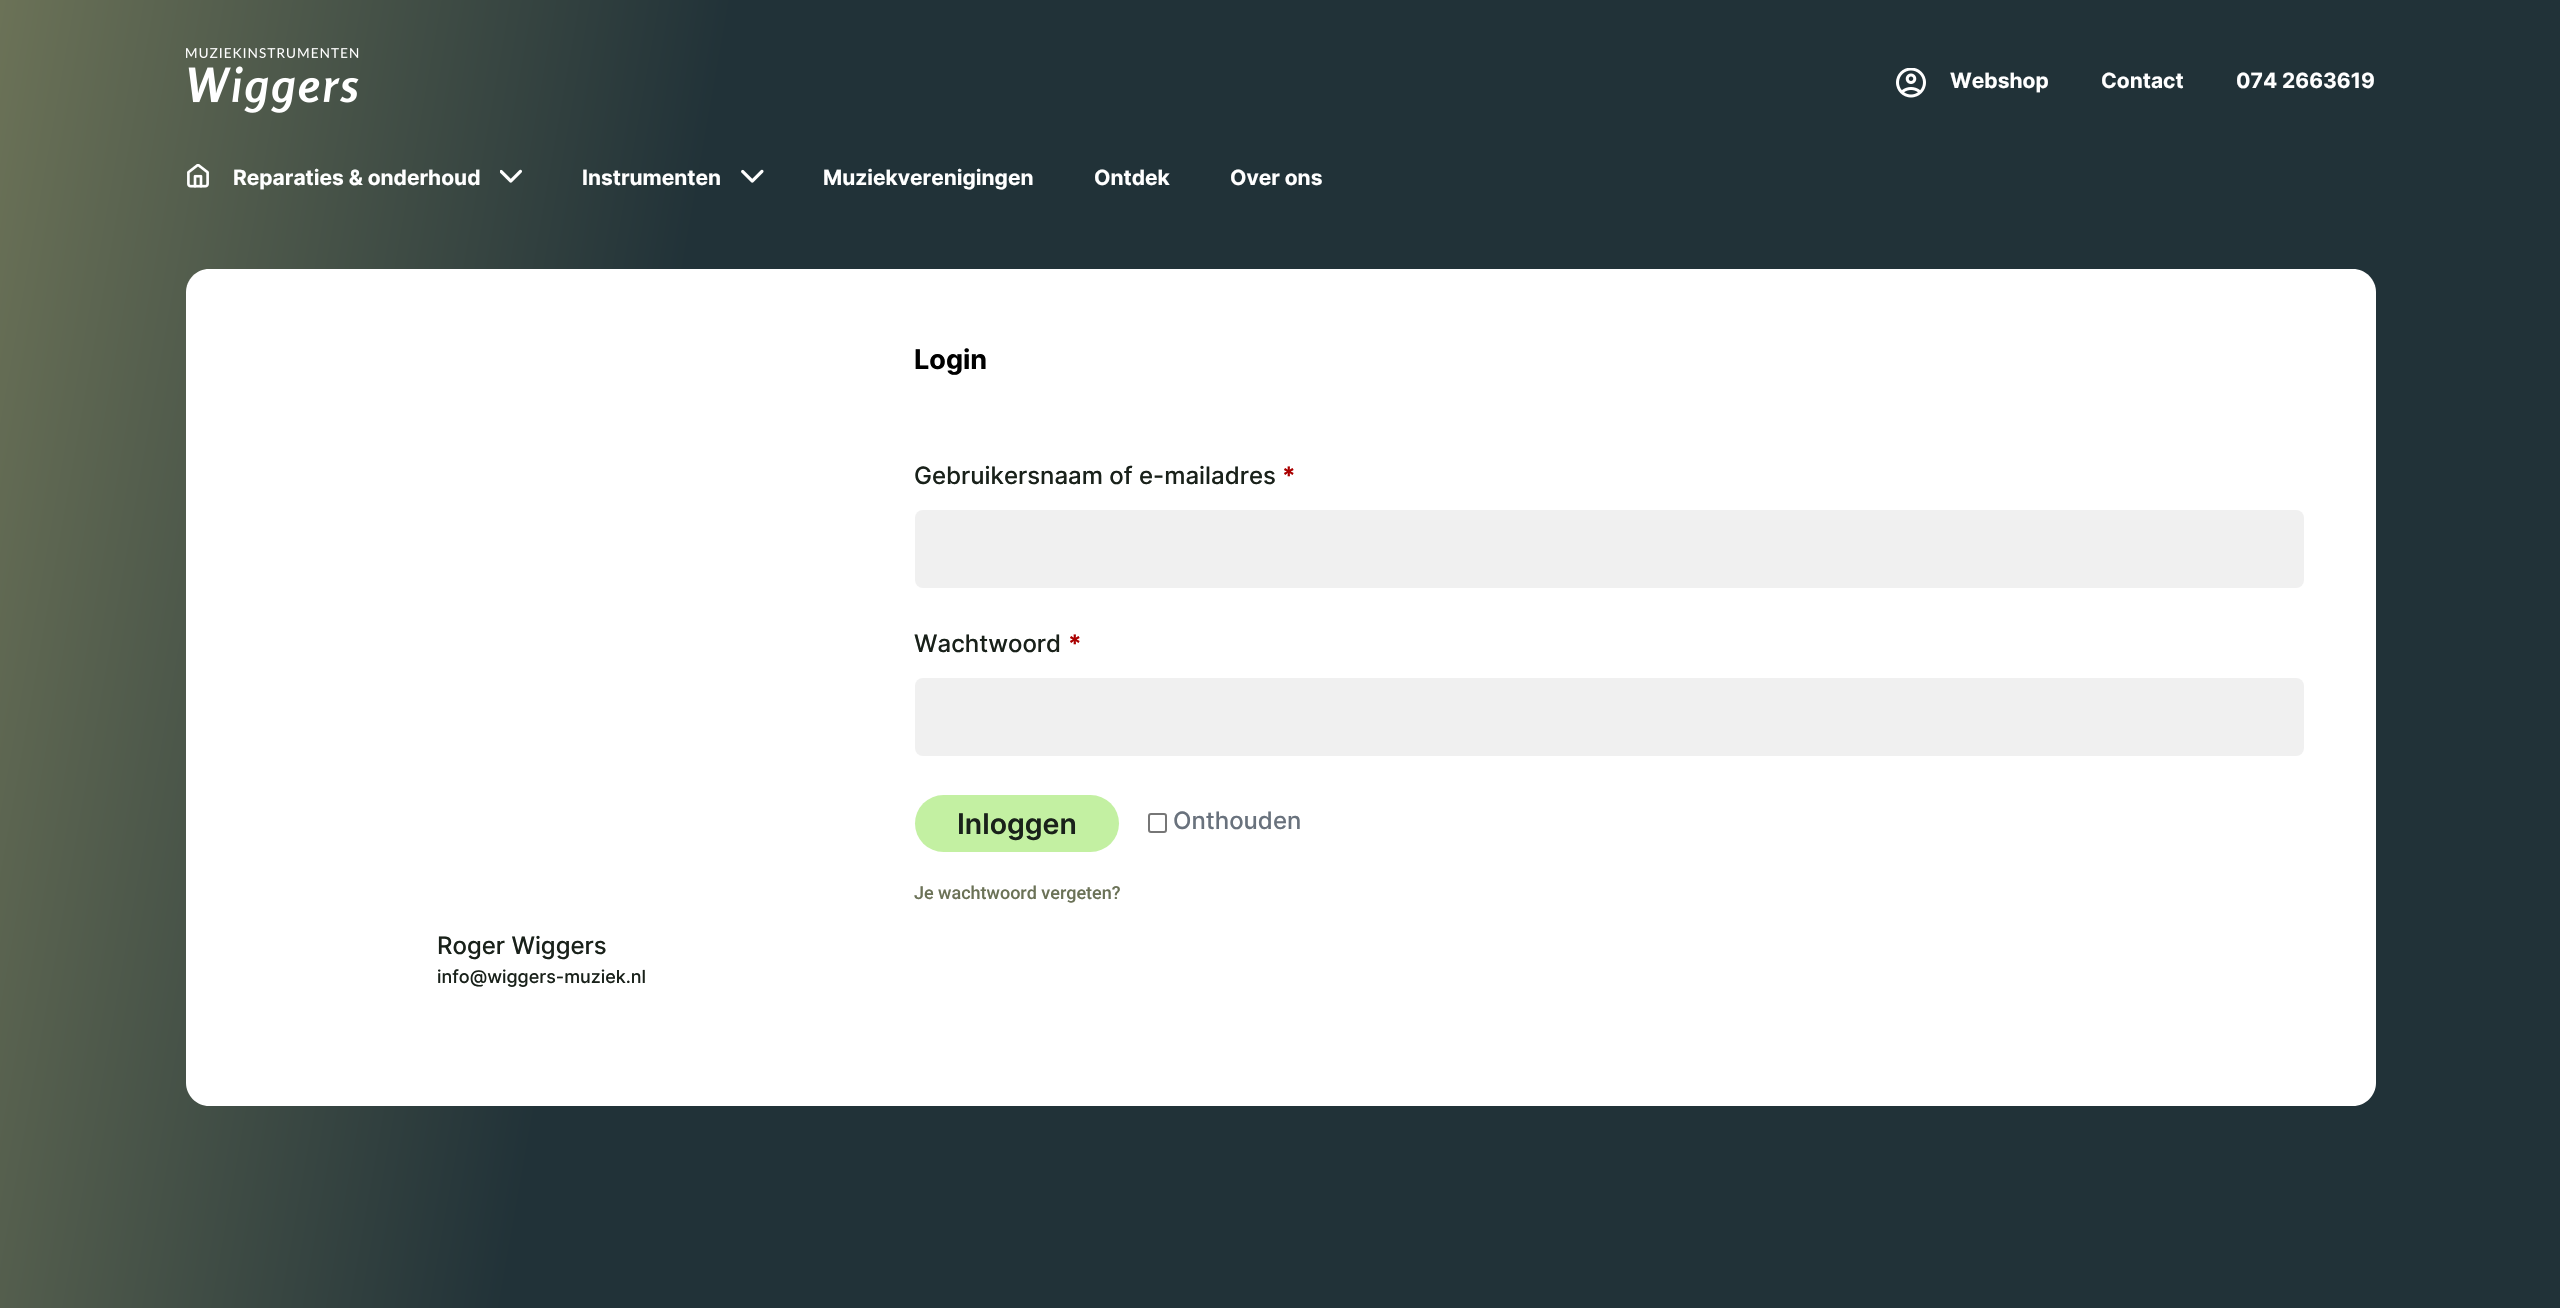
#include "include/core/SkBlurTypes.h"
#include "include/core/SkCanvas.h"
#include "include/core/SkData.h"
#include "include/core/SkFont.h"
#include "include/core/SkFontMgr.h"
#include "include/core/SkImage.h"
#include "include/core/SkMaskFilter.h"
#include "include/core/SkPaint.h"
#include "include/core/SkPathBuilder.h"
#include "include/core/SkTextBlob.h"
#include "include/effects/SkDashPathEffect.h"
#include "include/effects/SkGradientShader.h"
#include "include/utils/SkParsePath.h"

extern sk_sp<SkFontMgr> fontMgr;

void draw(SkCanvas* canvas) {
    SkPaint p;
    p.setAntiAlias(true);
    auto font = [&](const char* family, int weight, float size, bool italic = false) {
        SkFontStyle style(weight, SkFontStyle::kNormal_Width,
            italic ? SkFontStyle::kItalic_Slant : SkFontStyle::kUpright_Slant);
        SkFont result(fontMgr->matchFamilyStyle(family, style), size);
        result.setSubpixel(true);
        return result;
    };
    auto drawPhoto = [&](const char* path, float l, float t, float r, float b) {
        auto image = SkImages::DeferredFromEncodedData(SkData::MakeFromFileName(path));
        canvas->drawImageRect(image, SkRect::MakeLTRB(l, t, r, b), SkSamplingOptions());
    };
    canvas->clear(0xFFFFFFFF);
    {
        const SkColor colors[] = {0xFF6B7257, 0xFF213238};
        const float stops[] = {0, 0.25f};
        const SkPoint ends[] = {{-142, 808}, {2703, 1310}};
        p.setShader(SkGradientShader::MakeLinear(ends, colors, stops, 2, SkTileMode::kClamp));
        p.setAlpha(255);
    }
    canvas->drawRect(SkRect::MakeLTRB(0, 0, 2560, 1308), p);
    drawPhoto("media/1.png", 186, 48, 359, 113);
    drawPhoto("media/2.png", 1896, 68, 1926, 98);
    auto font1 = font("Inter", 700, 21);
    p.setShader(nullptr);
    p.setColor(0xFFFFFFFF);
    {
        const struct { const char* s; float x, y; } items[] = {
            {"Webshop", 1950, 88},
            {"Contact", 2101, 88},
            {"074 2663619", 2236, 88},
        };
        for (auto [s, x, y] : items) {
            canvas->drawString(s, x, y, font1, p);
        }
    }
    drawPhoto("media/3.png", 187, 164, 209, 188);
    canvas->drawString("Reparaties & onderhoud", 233, 185, font1, p);
    drawPhoto("media/4.png", 500, 169, 522, 183);
    canvas->drawString("Instrumenten", 582, 185, font1, p);
    drawPhoto("media/5.png", 741, 169, 764, 183);
    {
        const struct { const char* s; float x, y; } items[] = {
            {"Muziekverenigingen", 823, 185},
            {"Ontdek", 1094, 185},
            {"Over ons", 1230, 185},
        };
        for (auto [s, x, y] : items) {
            canvas->drawString(s, x, y, font1, p);
        }
    }
    canvas->drawPath(SkPathBuilder().moveTo(843, 269).lineTo(2353, 269).cubicTo(2365.5f, 269, 2376, 279.5f, 2376, 292).lineTo(2376, 1083).cubicTo(2376, 1095.5f, 2365.5f, 1106, 2353, 1106).lineTo(843, 1106).close().detach(), p);
    auto font2 = font("Inter", 700, 27);
    p.setColor(0xFF000000);
    canvas->drawString("Login", 914, 369, font2, p);
    auto font3 = font("Inter", 500, 24);
    p.setColor(0xFF19211A);
    canvas->drawString("Gebruikersnaam of e-mailadres", 914, 484, font3, p);
    auto font4 = font("Inter", 700, 24);
    p.setColor(0xFFAA0000);
    canvas->drawString("*", 1282, 484, font4, p);
    p.setColor(0xFFF0F0F0);
    canvas->drawRoundRect(SkRect::MakeLTRB(915, 510, 2304, 588), 8, 8, p);
    p.setColor(0xFF19211A);
    canvas->drawString("Wachtwoord", 914, 652, font3, p);
    p.setColor(0xFFAA0000);
    canvas->drawString("*", 1068, 652, font4, p);
    p.setColor(0xFFF0F0F0);
    canvas->drawRoundRect(SkRect::MakeLTRB(915, 678, 2304, 756), 8, 8, p);
    p.setColor(0xFFC3F0A2);
    canvas->drawRoundRect(SkRect::MakeLTRB(915, 795, 1119, 852), 28.5f, 28.5f, p);
    auto font5 = font("Inter", 600, 28.5f);
    p.setColor(0xFF19211A);
    canvas->drawString("Inloggen", 957, 834, font5, p);
    p.setStyle(SkPaint::kStroke_Style);
    p.setStrokeWidth(2);
    p.setColor(0xFF767676);
    canvas->drawRoundRect(SkRect::MakeLTRB(1149, 814, 1166, 832), 2, 2, p);
    p.setStyle(SkPaint::kFill_Style);
    p.setColor(0xFF69727D);
    canvas->drawString("Onthouden", 1173, 829, font3, p);
    auto font6 = font("Roboto", 500, 18);
    p.setColor(0xFF6B7257);
    canvas->drawString("Je wachtwoord vergeten?", 914, 899, font6, p);
    p.setColor(0xFFFFFFFF);
    canvas->drawPath(SkPathBuilder().moveTo(209, 269).lineTo(843, 269).lineTo(843, 1106).lineTo(209, 1106).cubicTo(196.5f, 1106, 186, 1095.5f, 186, 1083).lineTo(186, 292).cubicTo(186, 279.5f, 196.5f, 269, 209, 269).close().detach(), p);
    p.setColor(0xFF19211A);
    canvas->drawString("Roger Wiggers", 437, 954, font3, p);
    auto font7 = font("Inter", 500, 18);
    canvas->drawString("info@wiggers-muziek.nl", 437, 983, font7, p);
}
